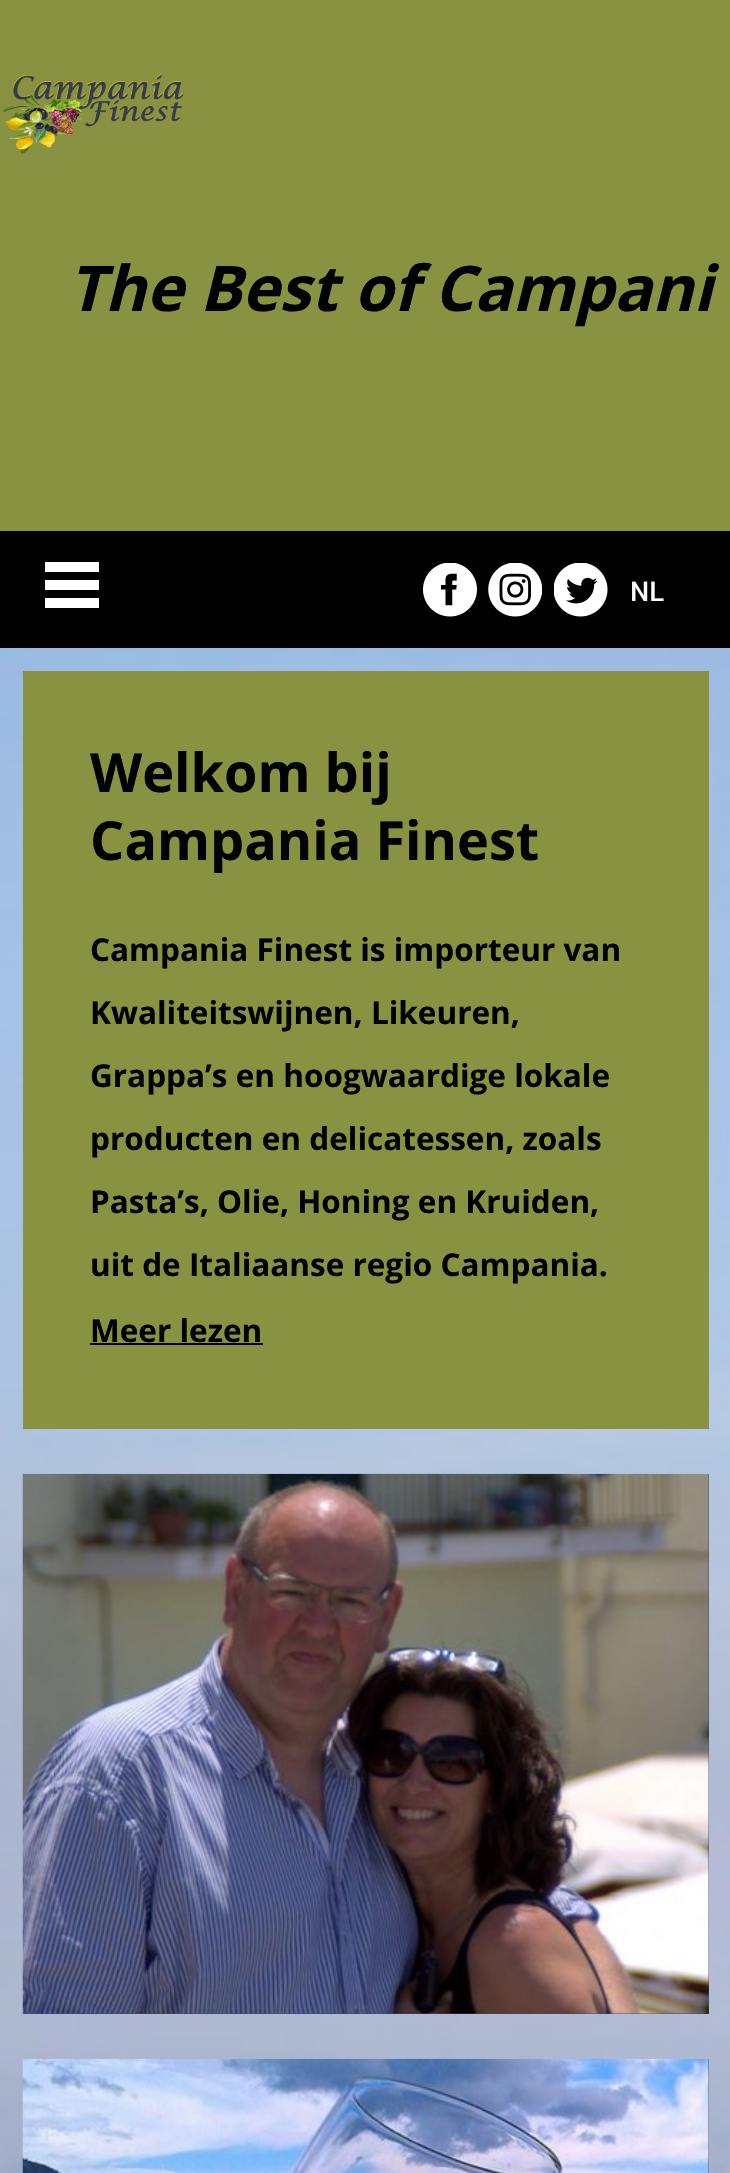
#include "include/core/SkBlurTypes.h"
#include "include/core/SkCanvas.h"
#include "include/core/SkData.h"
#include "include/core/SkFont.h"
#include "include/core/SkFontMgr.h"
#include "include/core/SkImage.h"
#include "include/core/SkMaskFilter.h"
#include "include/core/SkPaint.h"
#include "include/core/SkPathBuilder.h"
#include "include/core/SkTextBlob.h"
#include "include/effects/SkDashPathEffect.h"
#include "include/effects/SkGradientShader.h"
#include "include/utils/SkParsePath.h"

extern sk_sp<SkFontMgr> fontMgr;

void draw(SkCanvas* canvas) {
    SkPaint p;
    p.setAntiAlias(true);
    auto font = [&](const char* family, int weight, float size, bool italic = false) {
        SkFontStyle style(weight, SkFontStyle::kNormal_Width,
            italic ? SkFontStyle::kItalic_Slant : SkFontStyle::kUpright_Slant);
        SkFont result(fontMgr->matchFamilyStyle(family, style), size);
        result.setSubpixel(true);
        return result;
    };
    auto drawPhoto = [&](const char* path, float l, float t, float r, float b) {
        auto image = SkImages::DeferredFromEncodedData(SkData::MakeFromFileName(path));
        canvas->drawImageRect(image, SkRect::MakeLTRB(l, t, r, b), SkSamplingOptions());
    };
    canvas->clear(0xFFFFFFFF);
    drawPhoto("media/1.png", 0, 648, 730, 2173);
    p.setColor(0xFF899240);
    canvas->drawRect(SkRect::MakeLTRB(0, 0, 730, 531), p);
    drawPhoto("media/2.png", 3, 73, 184, 155);
    auto font1 = font("Open Sans", 700, 63, true);
    p.setColor(0xFF030203);
    canvas->drawString("The Best of Campani", 68, 311, font1, p);
    p.setColor(0xFF000000);
    canvas->drawRect(SkRect::MakeLTRB(0, 531, 730, 648), p);
    p.setColor(0xFFFFFFFF);
    canvas->drawPath(SkPathBuilder().moveTo(99, 572).lineTo(45, 572).lineTo(45, 562).lineTo(99, 562).close().moveTo(99, 580).lineTo(45, 580).lineTo(45, 590).lineTo(99, 590).close().moveTo(99, 598).lineTo(45, 598).lineTo(45, 608).lineTo(99, 608).close().detach(), p);
    drawPhoto("media/3.png", 423, 563, 477, 617);
    drawPhoto("media/4.png", 488, 563, 542, 617);
    drawPhoto("media/5.png", 554, 563, 608, 617);
    auto font2 = font("Roboto", 500, 27);
    canvas->drawString("NL", 630, 601, font2, p);
    p.setColor(0xFF899240);
    canvas->drawRect(SkRect::MakeLTRB(23, 671, 709, 1429), p);
    auto font3 = font("Open Sans", 700, 54);
    p.setColor(0xFF030203);
    canvas->drawString("Welkom bij", 90, 792, font3, p);
    canvas->drawString("Campania Finest", 90, 860, font3, p);
    auto font4 = font("Open Sans", 700, 31.5f);
    {
        const struct { const char* s; float x, y; } items[] = {
            {"Campania Finest is importeur van", 90, 961},
            {"Kwaliteitswijnen, Likeuren,", 90, 1024},
            {"Grappa’s en hoogwaardige lokale", 90, 1087},
            {"producten en delicatessen, zoals", 90, 1150},
            {"Pasta’s, Olie, Honing en Kruiden,", 90, 1213},
            {"uit de Italiaanse regio Campania.", 90, 1276},
            {"Meer lezen", 90, 1342},
        };
        for (auto [s, x, y] : items) {
            canvas->drawString(s, x, y, font4, p);
        }
    }
    canvas->drawRect(SkRect::MakeLTRB(90, 1343, 263, 1345), p);
    p.setColor(0xFF3C4662);
    canvas->drawRect(SkRect::MakeLTRB(23, 1474, 709, 2014), p);
    drawPhoto("media/6.png", 22, 1473, 709, 2014);
    canvas->drawRect(SkRect::MakeLTRB(708, 2059, 709, 2173), p);
    drawPhoto("media/7.png", 22, 2058, 709, 2173);
}
